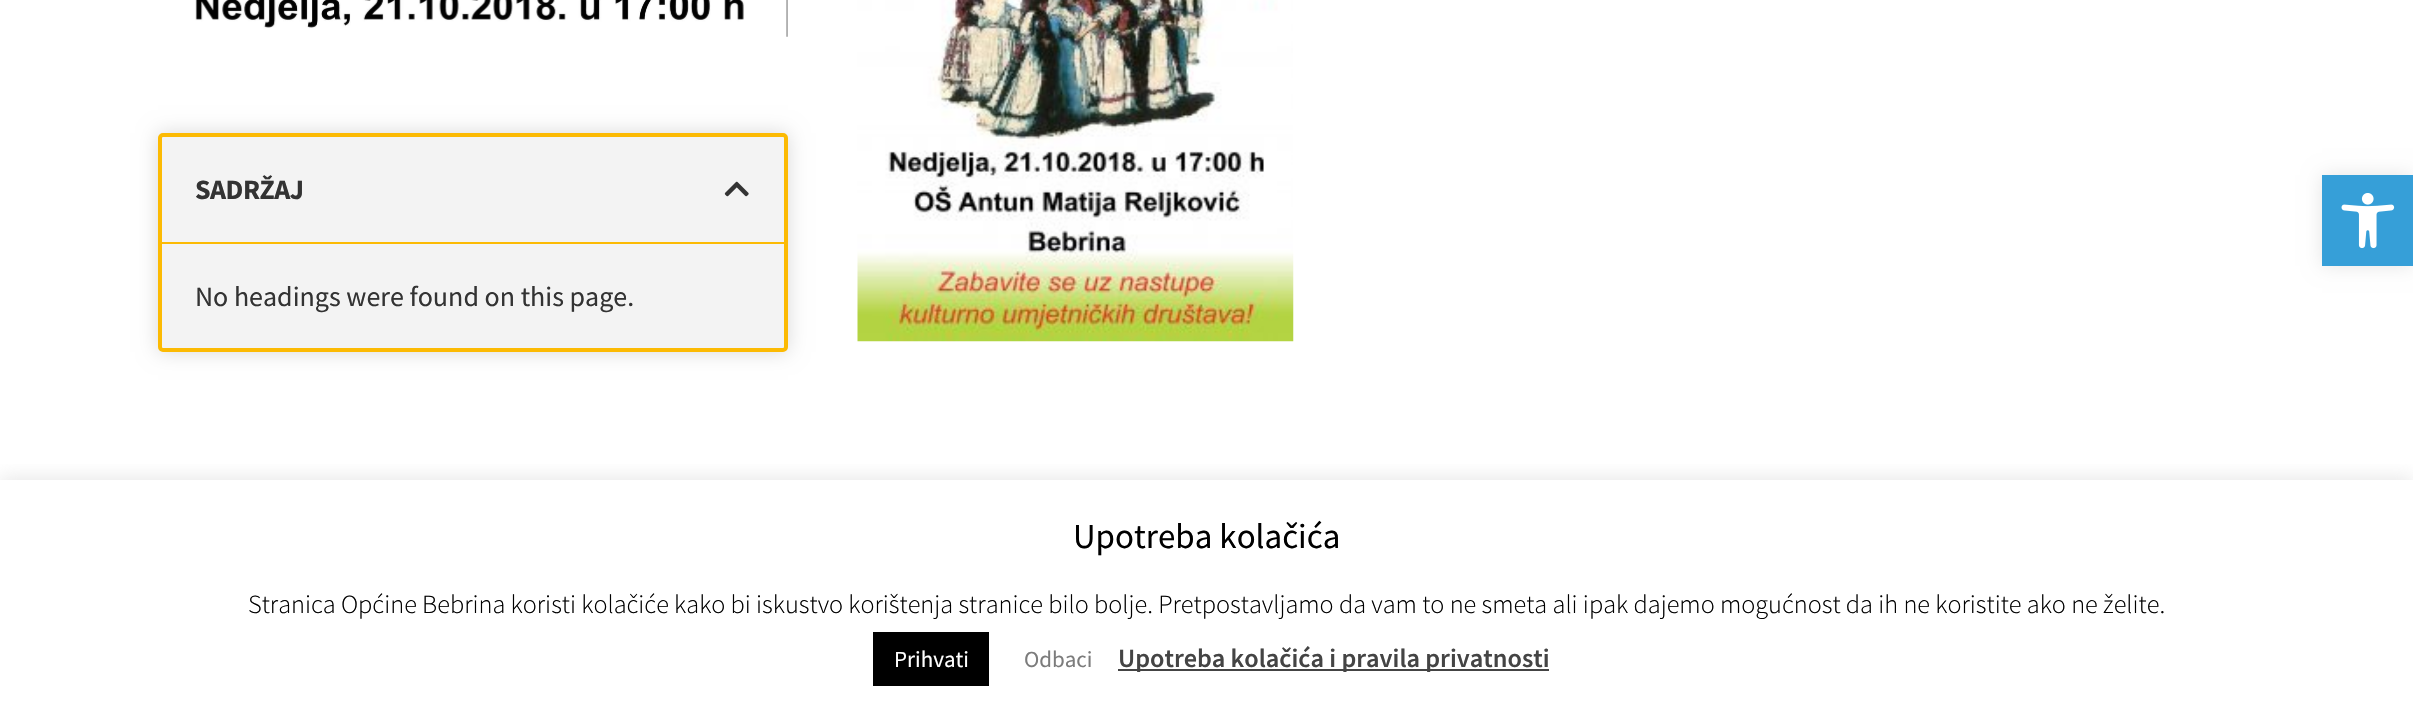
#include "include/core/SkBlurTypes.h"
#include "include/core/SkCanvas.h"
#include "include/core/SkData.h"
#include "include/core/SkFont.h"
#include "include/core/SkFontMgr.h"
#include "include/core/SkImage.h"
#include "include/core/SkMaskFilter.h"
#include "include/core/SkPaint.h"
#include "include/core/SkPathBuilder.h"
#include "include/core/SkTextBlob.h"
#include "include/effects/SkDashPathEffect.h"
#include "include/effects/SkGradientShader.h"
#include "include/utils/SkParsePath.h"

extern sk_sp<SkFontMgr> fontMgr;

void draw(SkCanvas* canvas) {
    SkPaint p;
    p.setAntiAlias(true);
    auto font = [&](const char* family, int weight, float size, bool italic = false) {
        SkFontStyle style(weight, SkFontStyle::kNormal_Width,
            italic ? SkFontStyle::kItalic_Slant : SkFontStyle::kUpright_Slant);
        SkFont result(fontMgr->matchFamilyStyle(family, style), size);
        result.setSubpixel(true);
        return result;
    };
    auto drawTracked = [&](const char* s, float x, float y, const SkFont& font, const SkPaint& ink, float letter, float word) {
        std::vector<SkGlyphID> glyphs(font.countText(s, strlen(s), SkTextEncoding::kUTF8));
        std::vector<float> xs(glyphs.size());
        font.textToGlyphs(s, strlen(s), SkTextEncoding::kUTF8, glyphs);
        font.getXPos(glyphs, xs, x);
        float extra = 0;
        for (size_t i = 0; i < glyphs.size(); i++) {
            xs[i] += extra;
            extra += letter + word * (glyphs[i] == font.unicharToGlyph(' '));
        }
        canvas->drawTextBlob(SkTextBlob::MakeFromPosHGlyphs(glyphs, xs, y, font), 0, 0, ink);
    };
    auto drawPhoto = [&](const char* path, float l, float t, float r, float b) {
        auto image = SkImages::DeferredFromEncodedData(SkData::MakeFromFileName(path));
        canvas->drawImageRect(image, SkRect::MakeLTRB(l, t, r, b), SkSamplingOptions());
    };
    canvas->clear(0xFFFFFFFF);
    drawPhoto("media/1.png", 195, 0, 788, 37);
    p.setColor(0x26000000);
    p.setMaskFilter(SkMaskFilter::MakeBlur(kNormal_SkBlurStyle, 9.5f));
    canvas->drawRect(SkRect::MakeLTRB(158, 133, 788, 352), p);
    p.setMaskFilter(nullptr);
    p.setColor(0xFFF3F3F3);
    canvas->drawRoundRect(SkRect::MakeLTRB(160, 135, 786, 350), 3, 3, p);
    p.setStyle(SkPaint::kStroke_Style);
    p.setStrokeWidth(4);
    p.setColor(0xFFFCBA03);
    canvas->drawRoundRect(SkRect::MakeLTRB(160, 135, 786, 350), 3, 3, p);
    p.setStyle(SkPaint::kFill_Style);
    canvas->drawRect(SkRect::MakeLTRB(161, 242, 784, 244), p);
    auto font1 = font("Source Sans Pro", 700, 28);
    p.setColor(0xFF333333);
    drawTracked("SADRŽAJ", 195, 199, font1, p, -0.5f, 0);
    drawPhoto("media/2.png", 724, 181, 749, 197);
    auto font2 = font("Source Sans Pro", 400, 28);
    canvas->drawString("No headings were found on this page.", 195, 306, font2, p);
    drawPhoto("media/3.png", 857, 0, 1294, 342);
    p.setColor(0x1A000000);
    p.setMaskFilter(SkMaskFilter::MakeBlur(kNormal_SkBlurStyle, 9));
    canvas->drawRect(SkRect::MakeLTRB(2322, 175, 2413, 266), p);
    p.setMaskFilter(nullptr);
    p.setColor(0xFF369FD8);
    canvas->drawRect(SkRect::MakeLTRB(2322, 175, 2413, 266), p);
    drawPhoto("media/4.png", 2341, 193, 2395, 249);
    canvas->save();
    canvas->clipRect(SkRect::MakeLTRB(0, 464, 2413, 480));
    p.setColor(0x4DACABAB);
    p.setMaskFilter(SkMaskFilter::MakeBlur(kNormal_SkBlurStyle, 9));
    canvas->drawRect(SkRect::MakeLTRB(0, 478, 2413, 705), p);
    p.setMaskFilter(nullptr);
    canvas->restore();
    auto font3 = font("Source Sans Pro", 400, 35);
    p.setColor(0xFF000000);
    canvas->drawString("Upotreba kolačića", 1073, 548, font3, p);
    auto font4 = font("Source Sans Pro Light", 300, 26.25f);
    canvas->drawString("Stranica Općine Bebrina koristi kolačiće kako bi iskustvo korištenja stranice bilo bolje. Pretpostavljamo da vam to ne smeta ali ipak dajemo mogućnost da ih ne koristite ako ne želite.", 248, 613, font4, p);
    canvas->drawRect(SkRect::MakeLTRB(873, 632, 989, 686), p);
    auto font5 = font("Source Sans Pro", 400, 23);
    p.setColor(0xFFFFFFFF);
    canvas->drawString("Prihvati", 894, 667, font5, p);
    p.setColor(0xFF7C7C7C);
    canvas->drawString("Odbaci", 1024, 667, font5, p);
    p.setColor(0xFF444444);
    canvas->drawRect(SkRect::MakeLTRB(1118, 669, 1549, 671), p);
    auto font6 = font("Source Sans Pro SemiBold", 600, 26.25f);
    canvas->drawString("Upotreba kolačića i pravila privatnosti", 1118, 667, font6, p);
}
